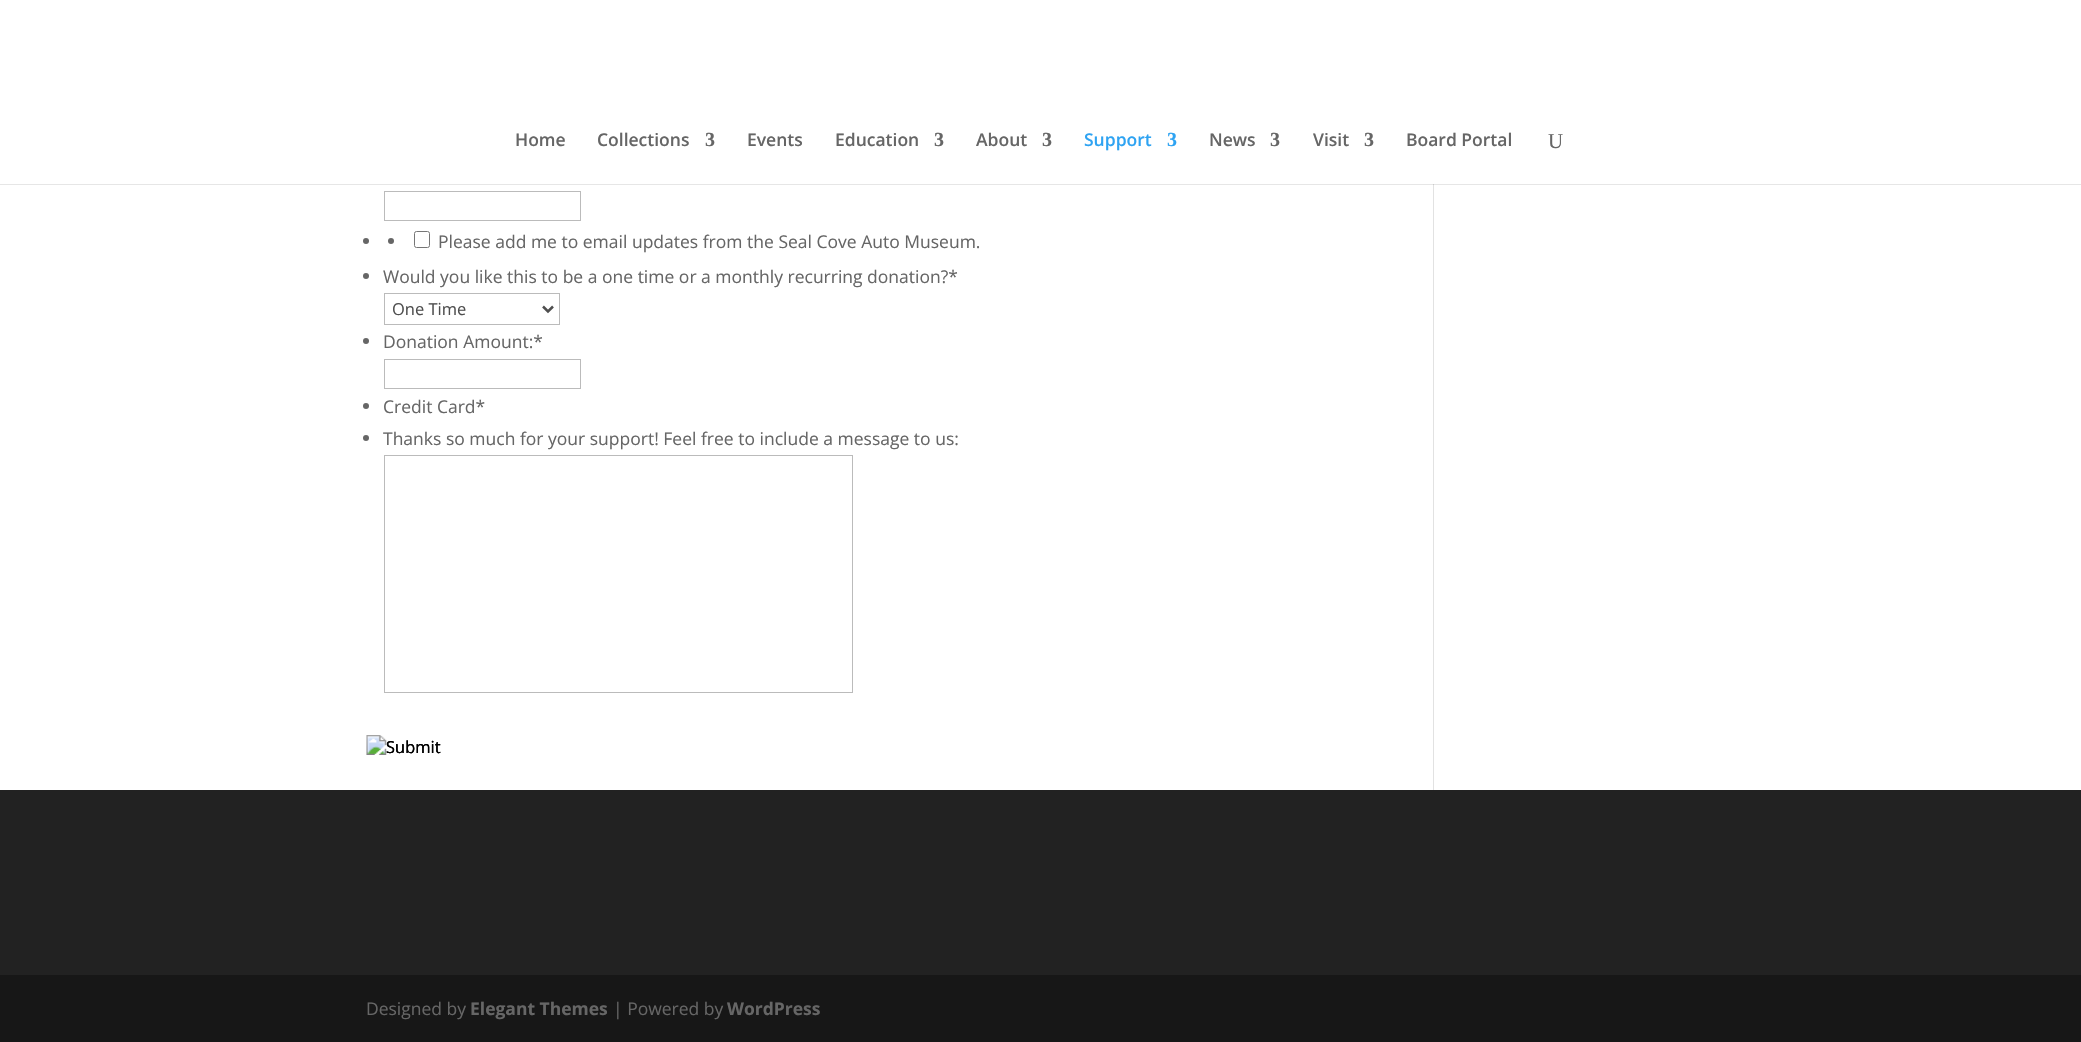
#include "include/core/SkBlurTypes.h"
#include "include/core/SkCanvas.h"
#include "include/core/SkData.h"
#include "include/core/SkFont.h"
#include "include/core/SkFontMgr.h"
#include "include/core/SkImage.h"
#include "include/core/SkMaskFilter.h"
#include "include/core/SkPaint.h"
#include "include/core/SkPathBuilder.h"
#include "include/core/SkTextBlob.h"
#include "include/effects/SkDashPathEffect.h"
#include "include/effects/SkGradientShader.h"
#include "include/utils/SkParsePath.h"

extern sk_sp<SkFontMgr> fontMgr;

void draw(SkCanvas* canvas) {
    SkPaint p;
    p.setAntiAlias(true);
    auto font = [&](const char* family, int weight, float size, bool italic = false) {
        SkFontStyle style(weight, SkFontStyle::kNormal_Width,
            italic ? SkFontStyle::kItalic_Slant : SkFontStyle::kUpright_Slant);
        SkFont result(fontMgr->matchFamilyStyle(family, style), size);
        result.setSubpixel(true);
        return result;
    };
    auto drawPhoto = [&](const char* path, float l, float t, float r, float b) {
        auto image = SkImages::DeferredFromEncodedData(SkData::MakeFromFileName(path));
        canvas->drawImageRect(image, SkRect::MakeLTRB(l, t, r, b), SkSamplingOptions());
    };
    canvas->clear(0xFFFFFFFF);
    p.setColor(0xFFE6E6E6);
    canvas->drawRect(SkRect::MakeLTRB(0, 184, 2081, 185), p);
    auto font1 = font("Open Sans", 600, 17.5f);
    p.setColor(0xFF666666);
    canvas->drawString("Home", 515, 146, font1, p);
    canvas->drawString("Collections", 597, 146, font1, p);
    auto font2 = font("Liberation Serif", 700, 20);
    canvas->drawString("3", 705, 146, font2, p);
    canvas->drawString("Events", 747, 146, font1, p);
    canvas->drawString("Education", 835, 146, font1, p);
    canvas->drawString("3", 934, 146, font2, p);
    canvas->drawString("About", 976, 146, font1, p);
    canvas->drawString("3", 1042, 146, font2, p);
    p.setColor(0xFF2EA3F2);
    canvas->drawString("Support", 1084, 146, font1, p);
    canvas->drawString("3", 1167, 146, font2, p);
    p.setColor(0xFF666666);
    canvas->drawString("News", 1209, 146, font1, p);
    canvas->drawString("3", 1270, 146, font2, p);
    canvas->drawString("Visit", 1313, 146, font1, p);
    canvas->drawString("3", 1364, 146, font2, p);
    canvas->drawString("Board Portal", 1406, 146, font1, p);
    auto font3 = font("Liberation Serif", 400, 21);
    canvas->drawString("U", 1548, 148, font3, p);
    p.setStyle(SkPaint::kStroke_Style);
    p.setStrokeWidth(1);
    p.setColor(0xFFBBBBBB);
    canvas->drawRect(SkRect::MakeLTRB(384.5f, 191.5f, 580.5f, 220.5f), p);
    p.setStyle(SkPaint::kFill_Style);
    p.setColor(0xFF666666);
    canvas->drawCircle(366, 241, 3, p);
    canvas->drawCircle(391, 241, 3, p);
    p.setStyle(SkPaint::kStroke_Style);
    p.setColor(0xFF767676);
    canvas->drawRoundRect(SkRect::MakeLTRB(414.5f, 231.5f, 429.5f, 247.5f), 2, 2, p);
    auto font4 = font("Open Sans", 400, 17.5f);
    p.setStyle(SkPaint::kFill_Style);
    p.setColor(0xFF666666);
    canvas->drawString("Please add me to email updates from the Seal Cove Auto Museum.", 438, 248, font4, p);
    canvas->drawCircle(366, 276, 3, p);
    canvas->drawString("Would you like this to be a one time or a monthly recurring donation?*", 383, 283, font4, p);
    p.setStyle(SkPaint::kStroke_Style);
    p.setColor(0xFFBBBBBB);
    canvas->drawRect(SkRect::MakeLTRB(384.5f, 293.5f, 559.5f, 324.5f), p);
    p.setStrokeWidth(2.5f);
    p.setColor(0xFF4E4E4E);
    canvas->drawPath(SkPathBuilder().moveTo(543, 306.5f).lineTo(548, 311.5f).lineTo(553, 306.5f).detach(), p);
    auto font5 = font("Open Sans", 400, 16.5f);
    p.setStyle(SkPaint::kFill_Style);
    canvas->drawString("One Time", 392, 315, font5, p);
    p.setColor(0xFF666666);
    canvas->drawCircle(366, 341, 3, p);
    canvas->drawString("Donation Amount:*", 383, 348, font4, p);
    p.setStyle(SkPaint::kStroke_Style);
    p.setStrokeWidth(1);
    p.setColor(0xFFBBBBBB);
    canvas->drawRect(SkRect::MakeLTRB(384.5f, 359.5f, 580.5f, 388.5f), p);
    p.setStyle(SkPaint::kFill_Style);
    p.setColor(0xFF666666);
    canvas->drawCircle(366, 406, 3, p);
    canvas->drawString("Credit Card*", 383, 413, font4, p);
    canvas->drawCircle(366, 438, 3, p);
    canvas->drawString("Thanks so much for your support! Feel free to include a message to us:", 383, 445, font4, p);
    p.setStyle(SkPaint::kStroke_Style);
    p.setColor(0xFFBBBBBB);
    canvas->drawRect(SkRect::MakeLTRB(384.5f, 455.5f, 852.5f, 692.5f), p);
    drawPhoto("media/1.png", 366, 735, 441, 755);
    p.setStyle(SkPaint::kFill_Style);
    p.setColor(0xFF000000);
    canvas->drawString("Submit", 386, 753, font5, p);
    {
        const struct { float l, t, r, b; SkColor color; } items[] = {
            {1433, 185, 1434, 790, 0xFFE2E2E2},
            {1433, 184, 1434, 185, 0xFFCBCBCB},
            {0, 790, 2081, 975, 0xFF222222},
            {0, 975, 2081, 1042, 0xFF171717},
        };
        for (auto [l, t, r, b, color] : items) {
            p.setColor(color);
            canvas->drawRect(SkRect::MakeLTRB(l, t, r, b), p);
        }
    }
    p.setColor(0xFF666666);
    canvas->drawString("Designed by", 366, 1015, font4, p);
    auto font6 = font("Open Sans", 700, 17.5f);
    canvas->drawString("Elegant Themes", 470, 1015, font6, p);
    canvas->drawString("| Powered by", 613, 1015, font4, p);
    canvas->drawString("WordPress", 727, 1015, font6, p);
}
